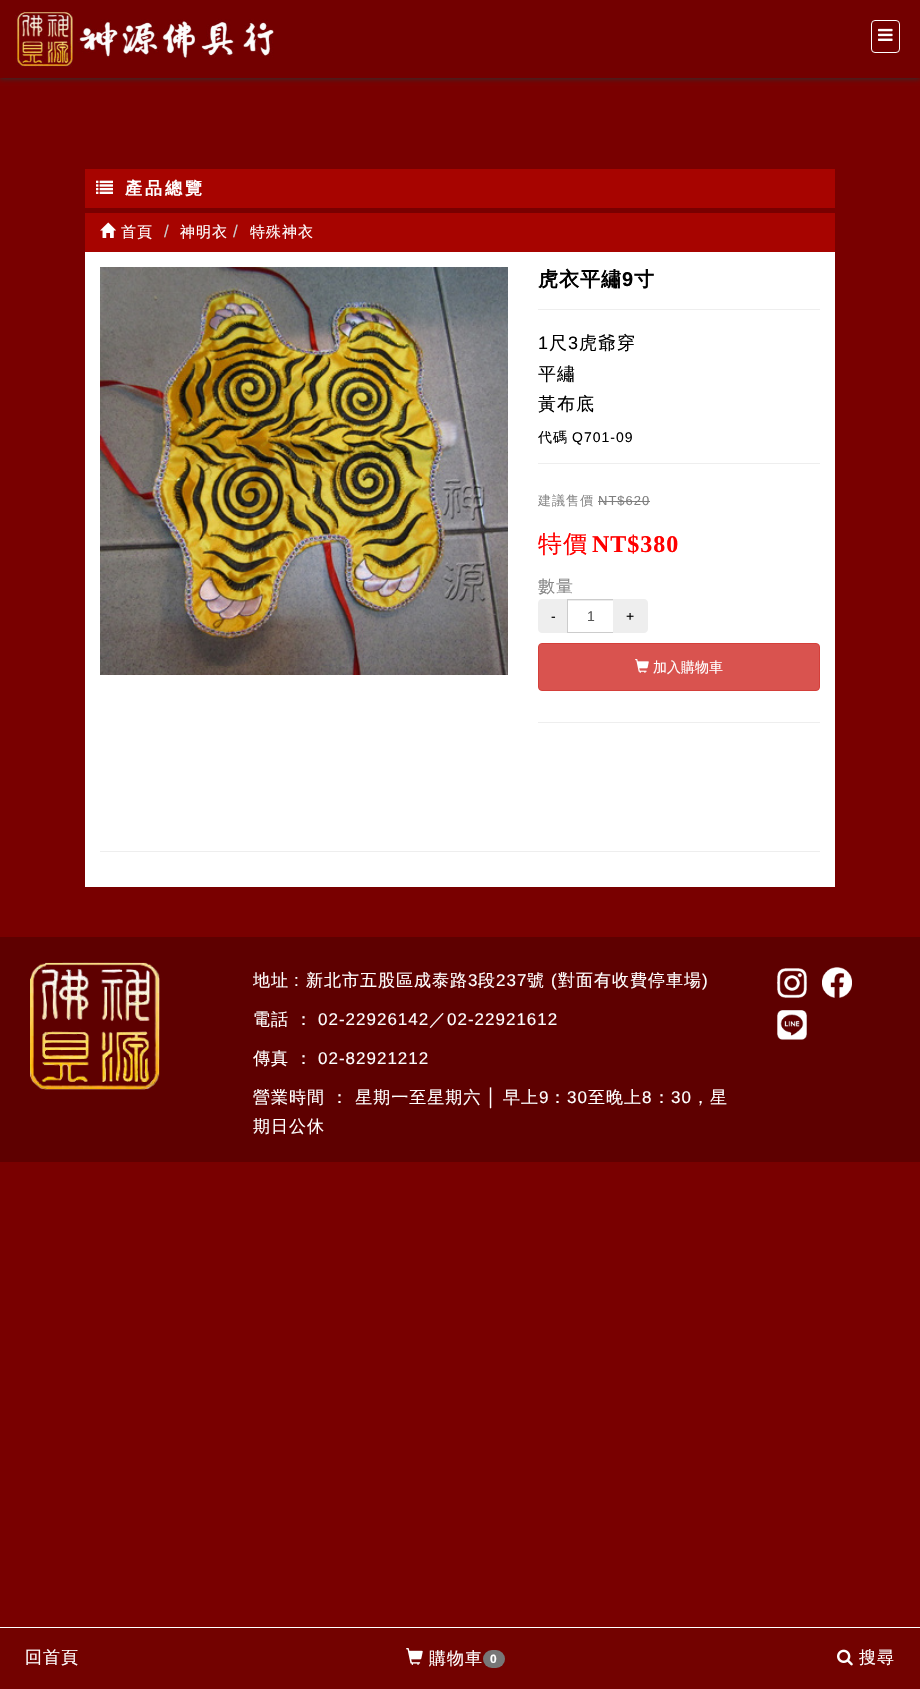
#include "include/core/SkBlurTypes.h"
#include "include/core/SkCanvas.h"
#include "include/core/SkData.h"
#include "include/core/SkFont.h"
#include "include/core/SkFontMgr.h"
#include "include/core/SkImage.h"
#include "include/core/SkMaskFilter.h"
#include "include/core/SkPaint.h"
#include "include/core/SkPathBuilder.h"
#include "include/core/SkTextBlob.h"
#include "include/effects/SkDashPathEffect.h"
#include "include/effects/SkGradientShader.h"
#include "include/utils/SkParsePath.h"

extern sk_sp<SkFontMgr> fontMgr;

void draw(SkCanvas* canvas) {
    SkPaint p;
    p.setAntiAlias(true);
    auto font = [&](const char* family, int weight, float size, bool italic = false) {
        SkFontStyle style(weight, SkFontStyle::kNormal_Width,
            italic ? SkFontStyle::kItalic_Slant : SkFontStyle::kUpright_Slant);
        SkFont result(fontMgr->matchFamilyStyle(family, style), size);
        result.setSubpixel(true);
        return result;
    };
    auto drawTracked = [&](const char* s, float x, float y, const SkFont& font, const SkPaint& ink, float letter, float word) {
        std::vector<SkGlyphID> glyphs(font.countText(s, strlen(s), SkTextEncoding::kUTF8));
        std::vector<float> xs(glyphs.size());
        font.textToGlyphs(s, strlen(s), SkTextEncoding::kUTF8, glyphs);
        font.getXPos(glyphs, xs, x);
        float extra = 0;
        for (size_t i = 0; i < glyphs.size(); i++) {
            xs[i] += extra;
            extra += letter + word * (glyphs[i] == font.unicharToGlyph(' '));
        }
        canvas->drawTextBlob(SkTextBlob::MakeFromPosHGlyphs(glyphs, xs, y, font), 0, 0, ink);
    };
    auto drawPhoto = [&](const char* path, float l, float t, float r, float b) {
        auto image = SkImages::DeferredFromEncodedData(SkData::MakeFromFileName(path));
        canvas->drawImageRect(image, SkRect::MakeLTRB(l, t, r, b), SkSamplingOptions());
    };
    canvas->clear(0xFF790000);
    p.setColor(0xFFA70400);
    canvas->drawRect(SkRect::MakeLTRB(85, 169, 835, 208), p);
    drawPhoto("media/1.png", 96, 180, 113, 194);
    auto font1 = font("WenQuanYi Zen Hei", 700, 17);
    p.setColor(0xFFFFFFFF);
    drawTracked("產品總覽", 125, 194, font1, p, 3, 0);
    canvas->drawRect(SkRect::MakeLTRB(85, 252, 835, 887), p);
    p.setColor(0xFFA70400);
    canvas->drawRect(SkRect::MakeLTRB(85, 213, 835, 252), p);
    drawPhoto("media/2.png", 100, 222, 116, 238);
    auto font2 = font("WenQuanYi Zen Hei", 500, 15);
    p.setColor(0xFFFFFFFF);
    drawTracked("首頁", 121, 237, font2, p, 1, 0);
    auto font3 = font("Liberation Sans", 400, 17);
    p.setColor(0xFFCCCCCC);
    drawTracked("/", 164, 237, font3, p, 1, 0);
    p.setColor(0xFFFFFFFF);
    drawTracked("神明衣", 180, 237, font2, p, 1, 0);
    p.setColor(0xFFCCCCCC);
    drawTracked("/", 233, 237, font3, p, 1, 0);
    p.setColor(0xFFFFFFFF);
    drawTracked("特殊神衣", 250, 237, font2, p, 1, 0);
    drawPhoto("media/3.png", 100, 267, 508, 675);
    auto font4 = font("WenQuanYi Zen Hei", 700, 20);
    p.setColor(0xFF000000);
    drawTracked("虎衣平繡", 538, 286, font4, p, 1, 0);
    auto font5 = font("Liberation Sans", 700, 20);
    drawTracked("9", 622, 286, font5, p, 1, 0);
    drawTracked("寸", 634, 286, font4, p, 1, 0);
    p.setColor(0xFFEEEEEE);
    canvas->drawRect(SkRect::MakeLTRB(538, 309, 820, 310), p);
    auto font6 = font("Liberation Sans", 400, 18);
    p.setColor(0xFF000000);
    drawTracked("1", 538, 349, font6, p, 1, 0);
    auto font7 = font("WenQuanYi Zen Hei", 500, 18);
    drawTracked("尺", 549, 349, font7, p, 1, 0);
    drawTracked("3", 568, 349, font6, p, 1, 0);
    {
        const struct { const char* s; float x, y; } items[] = {
            {"虎爺穿", 579, 349},
            {"平繡", 538, 380},
            {"黃布底", 538, 410},
        };
        for (auto [s, x, y] : items) {
            drawTracked(s, x, y, font7, p, 1, 0);
        }
    }
    auto font8 = font("WenQuanYi Zen Hei", 500, 14);
    drawTracked("代碼", 538, 442, font8, p, 1, 0);
    auto font9 = font("Liberation Sans", 400, 14);
    drawTracked("Q701-09", 572, 442, font9, p, 1, 0);
    p.setColor(0xFFEEEEEE);
    canvas->drawRect(SkRect::MakeLTRB(538, 463, 820, 464), p);
    auto font10 = font("WenQuanYi Zen Hei", 500, 13);
    p.setColor(0xFF888888);
    drawTracked("建議售價", 538, 505, font10, p, 1, 0);
    auto font11 = font("Liberation Sans", 400, 13);
    p.setColor(0xFF7F7F7F);
    drawTracked("NT$620", 598, 505, font11, p, 1, 0);
    canvas->drawRect(SkRect::MakeLTRB(598, 501, 650, 502), p);
    auto font12 = font("WenQuanYi Zen Hei", 500, 24);
    p.setColor(0xFFFF0000);
    drawTracked("特價", 538, 552, font12, p, 1, 0);
    auto font13 = font("Liberation Serif", 700, 24);
    drawTracked("NT$380", 592, 552, font13, p, 1, 0);
    auto font14 = font("WenQuanYi Zen Hei", 500, 17);
    p.setColor(0xFF888888);
    drawTracked("數量", 538, 592, font14, p, 1, 0);
    p.setColor(0xFFEEEEEE);
    canvas->drawPath(SkPathBuilder().moveTo(542, 599).lineTo(568, 599).lineTo(568, 633).lineTo(542, 633).cubicTo(540, 633, 538, 631, 538, 629).lineTo(538, 603).cubicTo(538, 601, 540, 599, 542, 599).close().detach(), p);
    p.setColor(0xFF000000);
    canvas->drawString("-", 551, 621, font9, p);
    p.setColor(0xFFECECEC);
    canvas->drawRect(SkRect::MakeLTRB(568, 600, 613, 601), p);
    p.setStyle(SkPaint::kStroke_Style);
    p.setStrokeWidth(1);
    p.setColor(0xFFCCCCCC);
    canvas->drawRect(SkRect::MakeLTRB(567.5f, 599.5f, 613.5f, 632.5f), p);
    p.setStyle(SkPaint::kFill_Style);
    p.setColor(0xFF555555);
    canvas->drawString("1", 587, 621, font9, p);
    p.setColor(0xFFEEEEEE);
    canvas->drawPath(SkPathBuilder().moveTo(613, 599).lineTo(644, 599).cubicTo(646, 599, 648, 601, 648, 603).lineTo(648, 629).cubicTo(648, 631, 646, 633, 644, 633).lineTo(613, 633).close().detach(), p);
    p.setColor(0xFF000000);
    canvas->drawString("+", 626, 621, font9, p);
    p.setColor(0xFFD9534F);
    canvas->drawRoundRect(SkRect::MakeLTRB(538.5f, 643.5f, 819.5f, 690.5f), 3.5f, 3.5f, p);
    p.setStyle(SkPaint::kStroke_Style);
    p.setColor(0xFFD43F3A);
    canvas->drawRoundRect(SkRect::MakeLTRB(538.5f, 643.5f, 819.5f, 690.5f), 3.5f, 3.5f, p);
    drawPhoto("media/4.png", 635, 659, 649, 673);
    p.setStyle(SkPaint::kFill_Style);
    p.setColor(0xFFFFFFFF);
    canvas->drawString("加入購物車", 653, 672, font8, p);
    {
        const struct { float l, t, r, b; SkColor color; } items[] = {
            {538, 722, 820, 723, 0xFFEEEEEE},
            {100, 851, 820, 852, 0xFFEEEEEE},
            {0, 937, 920, 1162, 0xFF5E0000},
        };
        for (auto [l, t, r, b, color] : items) {
            p.setColor(color);
            canvas->drawRect(SkRect::MakeLTRB(l, t, r, b), p);
        }
    }
    drawPhoto("media/5.png", 30, 962, 160, 1090);
    p.setColor(0xFFFFFFFF);
    drawTracked("地址", 253, 986, font14, p, 1, 0);
    drawTracked(":", 294, 986, font3, p, 1, 0);
    drawTracked("新北市五股區成泰路", 306, 986, font14, p, 1, 0);
    drawTracked("3", 468, 986, font3, p, 1, 0);
    drawTracked("段", 478, 986, font14, p, 1, 0);
    drawTracked("237", 496, 986, font3, p, 1, 0);
    drawTracked("號", 527, 986, font14, p, 1, 0);
    drawTracked("(", 551, 986, font3, p, 1, 0);
    drawTracked("對面有收費停車場", 558, 986, font14, p, 1, 0);
    drawTracked(")", 702, 986, font3, p, 1, 0);
    drawTracked("電話 ：", 253, 1025, font14, p, 1, 0);
    drawTracked("02-22926142", 318, 1025, font3, p, 1, 0);
    drawTracked("／", 429, 1025, font14, p, 1, 0);
    drawTracked("02-22921612", 447, 1025, font3, p, 1, 0);
    drawTracked("傳真 ：", 253, 1064, font14, p, 1, 0);
    drawTracked("02-82921212", 318, 1064, font3, p, 1, 0);
    drawTracked("營業時間 ： 星期一至星期六", 253, 1103, font14, p, 1, 0);
    drawTracked("│", 486, 1103, font3, p, 1, 0);
    drawTracked("早上", 503, 1103, font14, p, 1, 0);
    drawTracked("9", 539, 1103, font3, p, 1, 0);
    drawTracked("：", 549, 1103, font14, p, 1, 0);
    drawTracked("30", 567, 1103, font3, p, 1, 0);
    drawTracked("至晚上", 588, 1103, font14, p, 1, 0);
    drawTracked("8", 642, 1103, font3, p, 1, 0);
    drawTracked("：", 653, 1103, font14, p, 1, 0);
    drawTracked("30", 671, 1103, font3, p, 1, 0);
    drawTracked("，星", 692, 1103, font14, p, 1, 0);
    drawTracked("期日公休", 253, 1132, font14, p, 1, 0);
    drawPhoto("media/6.png", 777, 968, 807, 998);
    drawPhoto("media/7.png", 822, 967, 852, 998);
    drawPhoto("media/8.png", 777, 1010, 807, 1040);
    p.setColor(0xFF2D2D2D);
    p.setMaskFilter(SkMaskFilter::MakeBlur(kNormal_SkBlurStyle, 2.5f));
    canvas->drawRect(SkRect::MakeLTRB(0, 1, 920, 79), p);
    p.setMaskFilter(nullptr);
    p.setColor(0xFF730000);
    canvas->drawRect(SkRect::MakeLTRB(0, 0, 920, 78), p);
    drawPhoto("media/9.png", 15, 10, 275, 67);
    p.setStyle(SkPaint::kStroke_Style);
    p.setColor(0xFFFFFFFF);
    canvas->drawRoundRect(SkRect::MakeLTRB(871.5f, 20.5f, 899.5f, 52.5f), 3.5f, 3.5f, p);
    drawPhoto("media/10.png", 878, 28, 893, 41);
    p.setStyle(SkPaint::kFill_Style);
    p.setColor(0xFF730200);
    canvas->drawRect(SkRect::MakeLTRB(0, 1628, 920, 1689), p);
    p.setColor(0xFFFFFFFF);
    canvas->drawRect(SkRect::MakeLTRB(0, 1627, 920, 1628), p);
    drawTracked("回首頁", 25, 1663, font14, p, 1, 0);
    drawPhoto("media/11.png", 406, 1648, 423, 1665);
    drawTracked("購物車", 429, 1664, font14, p, 1, 0);
    p.setColor(0xFF777777);
    canvas->drawRoundRect(SkRect::MakeLTRB(483, 1650, 505, 1668), 9, 9, p);
    auto font15 = font("Liberation Sans", 700, 12);
    p.setColor(0xFFFFFFFF);
    drawTracked("0", 490, 1663, font15, p, 1, 0);
    drawPhoto("media/12.png", 837, 1649, 853, 1666);
    drawTracked("搜尋", 859, 1663, font14, p, 1, 0);
}
